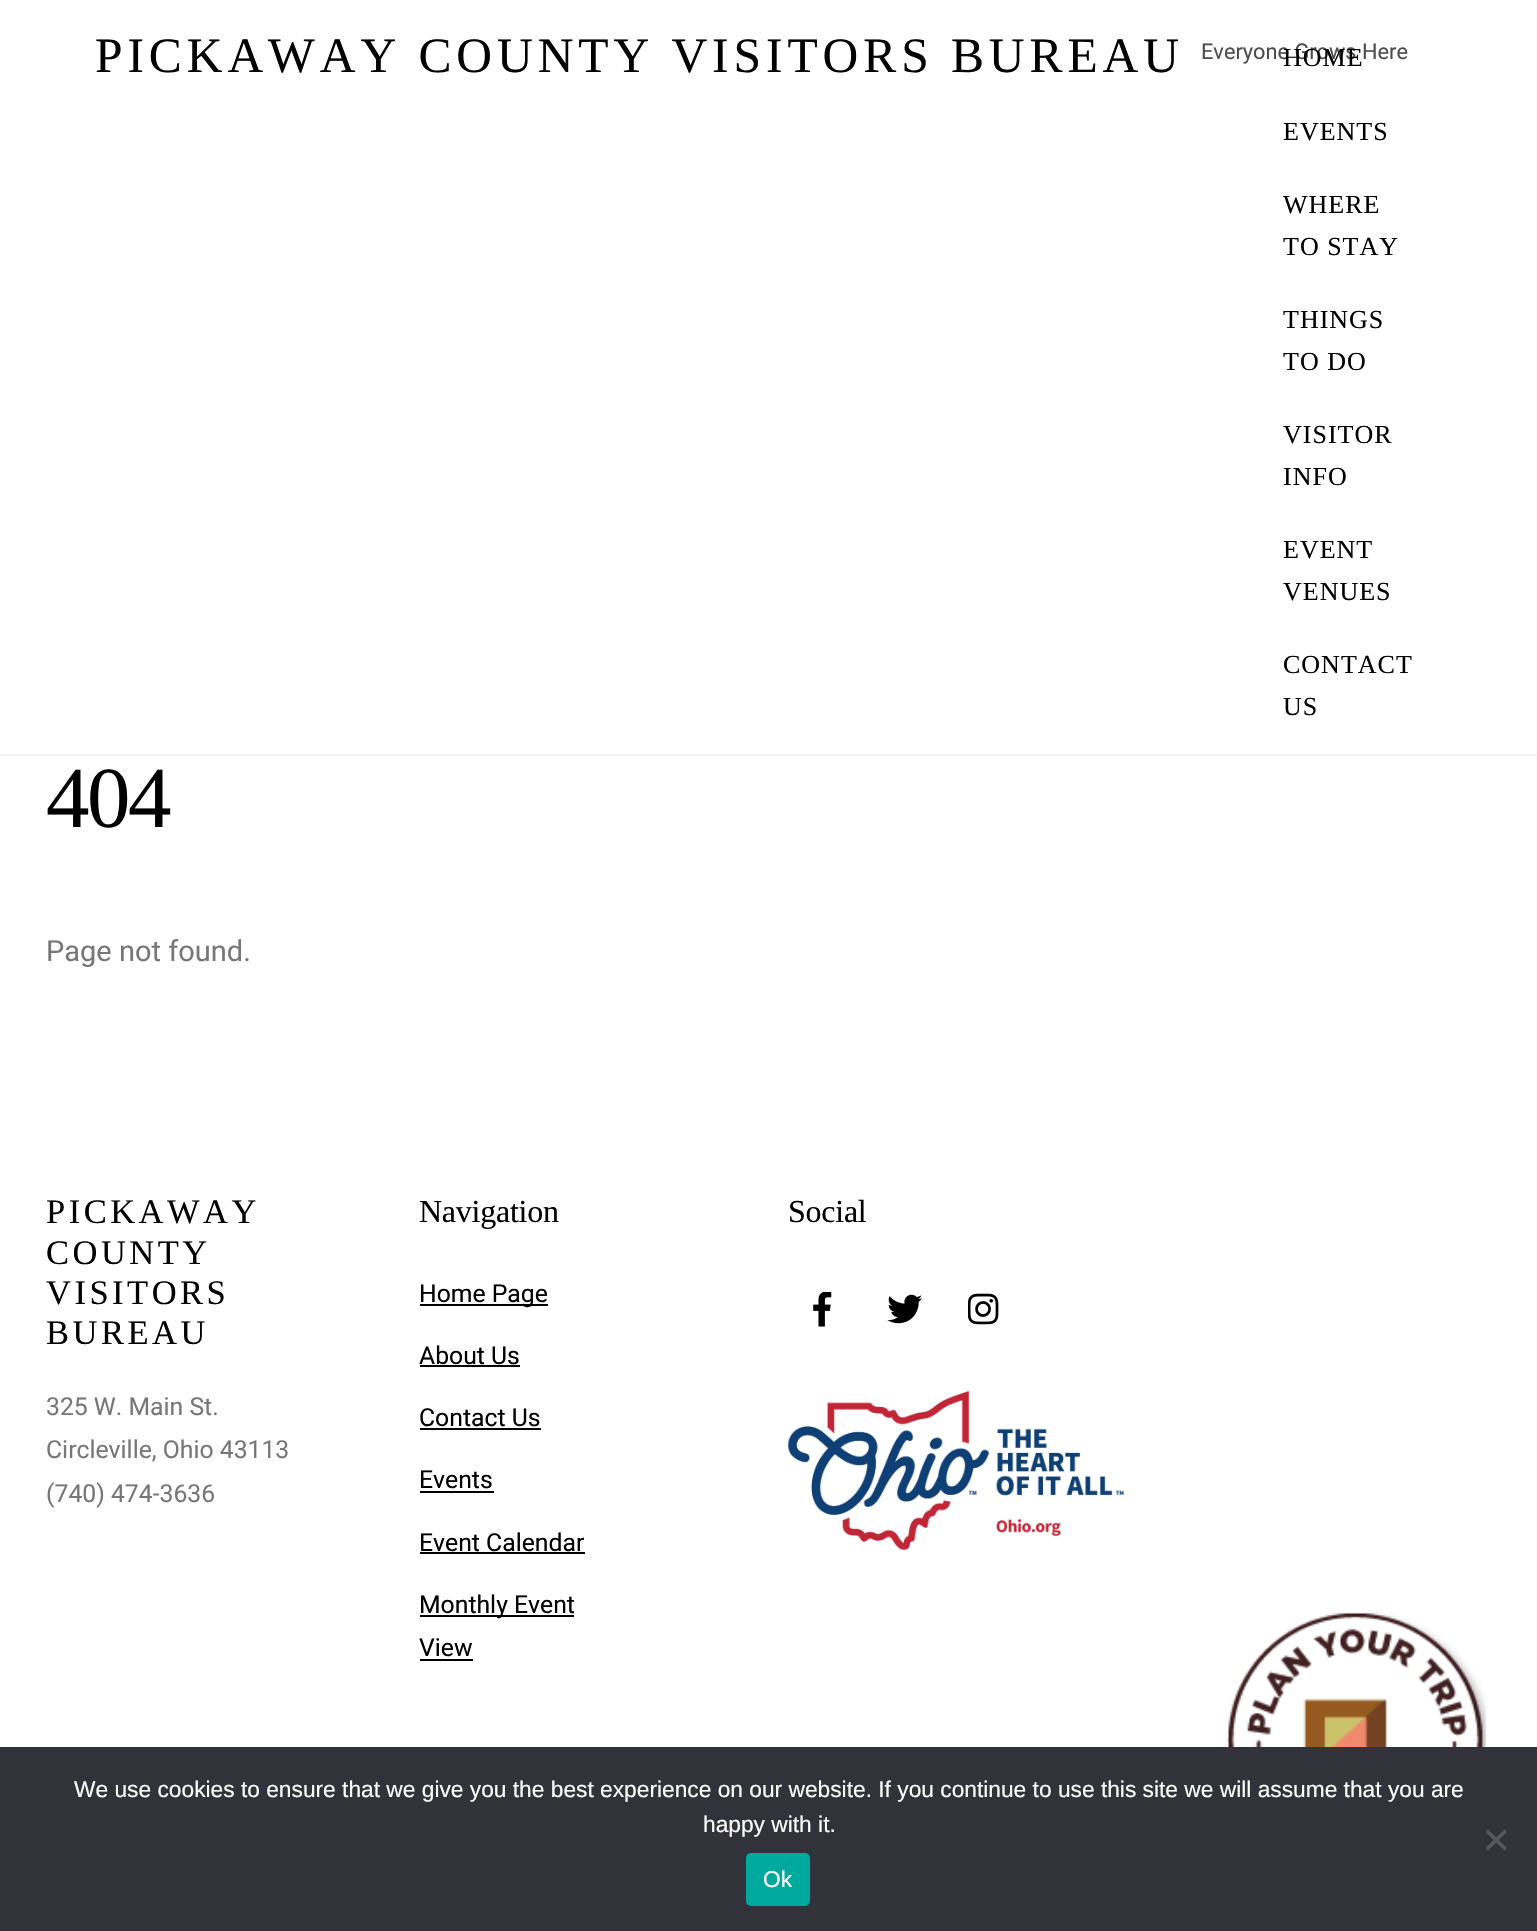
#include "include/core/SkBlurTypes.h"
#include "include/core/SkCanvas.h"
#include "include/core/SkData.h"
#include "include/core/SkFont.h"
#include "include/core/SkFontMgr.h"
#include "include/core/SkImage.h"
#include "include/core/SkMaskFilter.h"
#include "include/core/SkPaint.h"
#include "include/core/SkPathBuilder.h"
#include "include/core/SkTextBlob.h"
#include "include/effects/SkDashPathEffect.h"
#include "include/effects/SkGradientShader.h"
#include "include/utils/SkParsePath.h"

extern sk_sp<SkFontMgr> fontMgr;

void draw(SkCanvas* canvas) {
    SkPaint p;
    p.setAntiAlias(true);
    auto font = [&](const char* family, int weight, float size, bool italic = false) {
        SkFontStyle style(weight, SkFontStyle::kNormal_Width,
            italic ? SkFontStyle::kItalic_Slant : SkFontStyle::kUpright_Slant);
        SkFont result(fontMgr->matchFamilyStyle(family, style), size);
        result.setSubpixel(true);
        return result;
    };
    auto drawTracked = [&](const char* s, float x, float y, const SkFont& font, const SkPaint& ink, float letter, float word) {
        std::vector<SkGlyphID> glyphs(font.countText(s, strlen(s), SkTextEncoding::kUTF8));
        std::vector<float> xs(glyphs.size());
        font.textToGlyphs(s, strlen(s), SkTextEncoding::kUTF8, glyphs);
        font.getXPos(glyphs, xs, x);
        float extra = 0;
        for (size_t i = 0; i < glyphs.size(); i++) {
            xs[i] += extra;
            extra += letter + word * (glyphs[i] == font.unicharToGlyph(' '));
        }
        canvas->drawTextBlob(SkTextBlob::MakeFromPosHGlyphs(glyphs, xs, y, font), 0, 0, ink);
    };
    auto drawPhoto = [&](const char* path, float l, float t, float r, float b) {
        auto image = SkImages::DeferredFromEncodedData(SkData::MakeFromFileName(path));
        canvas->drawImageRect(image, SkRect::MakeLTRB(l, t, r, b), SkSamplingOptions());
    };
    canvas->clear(0xFFFFFFFF);
    p.setColor(0xFFF2F2F2);
    canvas->drawRect(SkRect::MakeLTRB(0, 754, 1537, 756), p);
    auto font1 = font("Liberation Serif", 400, 49.45f);
    p.setColor(0xFF000000);
    drawTracked("PICKAWAY COUNTY VISITORS BUREAU", 95, 72, font1, p, 4.95f, 0);
    auto font2 = font("Roboto", 400, 21.75f);
    p.setColor(0xFF4D4D4D);
    canvas->drawString("Everyone Grows Here", 1201, 59, font2, p);
    auto font3 = font("Liberation Serif", 400, 26);
    p.setColor(0xFF000000);
    {
        const struct { const char* s; float x, y; } items[] = {
            {"HOME", 1283, 66},
            {"EVENTS", 1283, 140},
            {"WHERE", 1283, 213},
            {"TO STAY", 1283, 255},
            {"THINGS", 1283, 328},
            {"TO DO", 1283, 370},
            {"VISITOR", 1283, 443},
            {"INFO", 1283, 485},
            {"EVENT", 1283, 558},
            {"VENUES", 1283, 600},
            {"CONTACT", 1283, 673},
            {"US", 1283, 715},
        };
        for (auto [s, x, y] : items) {
            drawTracked(s, x, y, font3, p, 1, 0);
        }
    }
    auto font4 = font("Liberation Serif", 400, 87);
    drawTracked("404", 46, 827, font4, p, -2.5f, 0);
    auto font5 = font("Roboto", 400, 29);
    p.setColor(0xFF777777);
    canvas->drawString("Page not found.", 46, 961, font5, p);
    auto font6 = font("Liberation Serif", 400, 34.5f);
    p.setColor(0xFF000000);
    {
        const struct { const char* s; float x, y; } items[] = {
            {"PICKAWAY", 46, 1223},
            {"COUNTY", 46, 1264},
            {"VISITORS", 46, 1304},
            {"BUREAU", 46, 1344},
        };
        for (auto [s, x, y] : items) {
            drawTracked(s, x, y, font6, p, 3.5f, 0);
        }
    }
    auto font7 = font("Roboto", 400, 24.75f);
    p.setColor(0xFF777777);
    {
        const struct { const char* s; float x, y; } items[] = {
            {"325 W. Main St.", 46, 1415},
            {"Circleville, Ohio 43113", 46, 1458},
            {"(740) 474-3636", 46, 1502},
        };
        for (auto [s, x, y] : items) {
            canvas->drawString(s, x, y, font7, p);
        }
    }
    auto font8 = font("Liberation Serif", 400, 32);
    p.setColor(0xFF000000);
    drawTracked("Navigation", 419, 1222, font8, p, -0.25f, 0);
    canvas->drawRect(SkRect::MakeLTRB(420, 1304, 548, 1306), p);
    canvas->drawString("Home Page", 419, 1302, font7, p);
    canvas->drawString("About Us", 419, 1364, font7, p);
    canvas->drawRect(SkRect::MakeLTRB(420, 1365, 520, 1367), p);
    canvas->drawString("Contact Us", 419, 1426, font7, p);
    canvas->drawRect(SkRect::MakeLTRB(420, 1428, 541, 1430), p);
    canvas->drawString("Events", 419, 1488, font7, p);
    canvas->drawRect(SkRect::MakeLTRB(420, 1491, 494, 1493), p);
    canvas->drawString("Event Calendar", 419, 1551, font7, p);
    canvas->drawRect(SkRect::MakeLTRB(420, 1552, 585, 1554), p);
    canvas->drawRect(SkRect::MakeLTRB(420, 1615, 574, 1617), p);
    canvas->drawString("Monthly Event", 419, 1613, font7, p);
    canvas->drawString("View", 419, 1656, font7, p);
    canvas->drawRect(SkRect::MakeLTRB(420, 1659, 473, 1661), p);
    drawTracked("Social", 788, 1222, font8, p, -0.25f, 0);
    drawPhoto("media/1.png", 813, 1292, 832, 1327);
    drawPhoto("media/2.png", 887, 1294, 922, 1324);
    drawPhoto("media/3.png", 968, 1293, 999, 1325);
    drawPhoto("media/4.png", 787, 1391, 1124, 1551);
    drawPhoto("media/5.png", 1226, 1612, 1486, 1747);
    p.setColor(0xFF32323A);
    canvas->drawRect(SkRect::MakeLTRB(0, 1747, 1537, 1931), p);
    auto font9 = font("Liberation Sans", 400, 22.75f);
    p.setColor(0xFFFFFFFF);
    canvas->drawString("We use cookies to ensure that we give you the best experience on our website. If you continue to use this site we will assume that you are", 74, 1797, font9, p);
    canvas->drawString("happy with it.", 703, 1832, font9, p);
    p.setColor(0xFF59595D);
    canvas->drawPath(SkPathBuilder().moveTo(1504.5f, 1829.5f).lineTo(1507, 1832).lineTo(1488, 1850.5f).lineTo(1485.5f, 1848).close().detach(), p);
    canvas->drawPath(SkPathBuilder().moveTo(1485.5f, 1832).lineTo(1488, 1829.5f).lineTo(1507, 1848).lineTo(1504.5f, 1850.5f).close().detach(), p);
    p.setColor(0xFF00A99D);
    canvas->drawRoundRect(SkRect::MakeLTRB(746, 1853, 810, 1906), 5, 5, p);
    p.setColor(0xFFFFFFFF);
    canvas->drawString("Ok", 763, 1887, font9, p);
}
